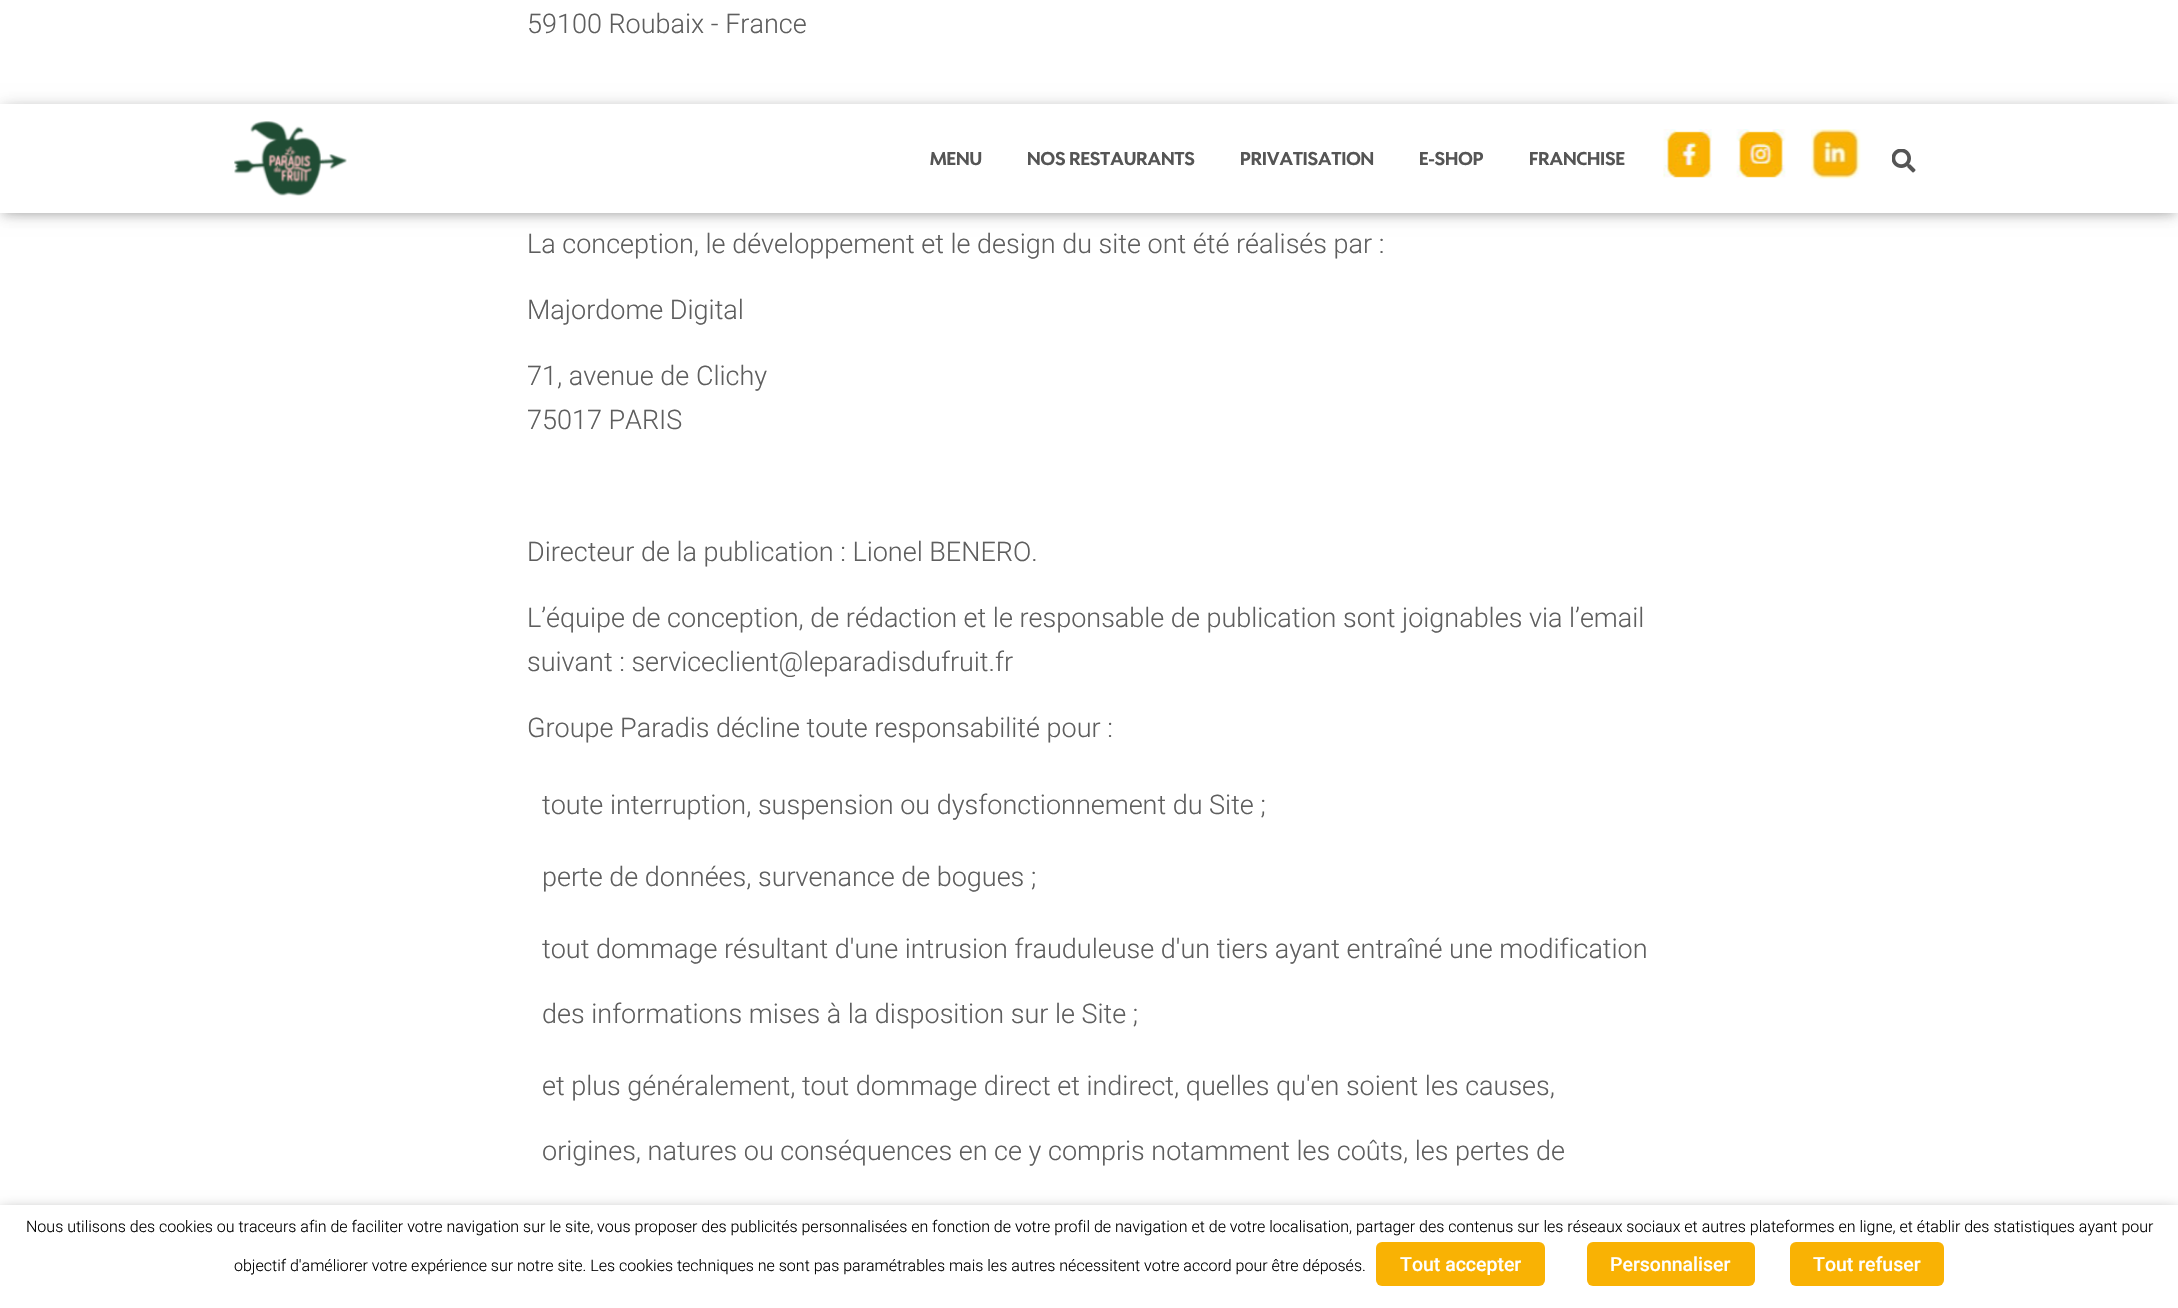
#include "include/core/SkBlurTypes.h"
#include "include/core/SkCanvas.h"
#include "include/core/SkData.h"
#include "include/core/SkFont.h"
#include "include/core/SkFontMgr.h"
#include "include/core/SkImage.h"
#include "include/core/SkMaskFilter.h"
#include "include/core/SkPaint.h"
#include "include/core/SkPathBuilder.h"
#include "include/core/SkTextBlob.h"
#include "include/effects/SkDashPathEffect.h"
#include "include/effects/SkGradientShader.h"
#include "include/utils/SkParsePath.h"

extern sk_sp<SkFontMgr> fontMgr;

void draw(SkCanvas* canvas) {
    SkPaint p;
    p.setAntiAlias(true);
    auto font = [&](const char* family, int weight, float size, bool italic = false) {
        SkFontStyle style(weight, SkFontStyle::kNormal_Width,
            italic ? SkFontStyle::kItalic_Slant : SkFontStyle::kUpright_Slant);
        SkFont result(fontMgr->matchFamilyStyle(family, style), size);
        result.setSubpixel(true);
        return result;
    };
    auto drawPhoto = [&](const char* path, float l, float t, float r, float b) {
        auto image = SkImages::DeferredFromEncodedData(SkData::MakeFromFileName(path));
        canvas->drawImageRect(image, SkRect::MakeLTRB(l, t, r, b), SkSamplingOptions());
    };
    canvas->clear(0xFFFFFFFF);
    auto font1 = font("Roboto", 300, 27);
    p.setColor(0xFF5E5E5E);
    {
        const struct { const char* s; float x, y; } items[] = {
            {"59100 Roubaix - France", 527, 33},
            {"La conception, le développement et le design du site ont été réalisés par :", 527, 253},
            {"Majordome Digital", 527, 319},
            {"71, avenue de Clichy", 527, 385},
            {"75017 PARIS", 527, 429},
            {"Directeur de la publication : Lionel BENERO.", 527, 561},
            {"L’équipe de conception, de rédaction et le responsable de publication sont joignables via l’email", 527, 627},
            {"suivant : serviceclient@leparadisdufruit.fr", 527, 671},
            {"Groupe Paradis décline toute responsabilité pour :", 527, 737},
            {"toute interruption, suspension ou dysfonctionnement du Site ;", 542, 814},
            {"perte de données, survenance de bogues ;", 542, 886},
            {"tout dommage résultant d'une intrusion frauduleuse d'un tiers ayant entraîné une modification", 542, 958},
            {"des informations mises à la disposition sur le Site ;", 542, 1023},
            {"et plus généralement, tout dommage direct et indirect, quelles qu'en soient les causes,", 542, 1095},
            {"origines, natures ou conséquences en ce y compris notamment les coûts, les pertes de", 542, 1160},
        };
        for (auto [s, x, y] : items) {
            canvas->drawString(s, x, y, font1, p);
        }
    }
    p.setColor(0x1A000000);
    p.setMaskFilter(SkMaskFilter::MakeBlur(kNormal_SkBlurStyle, 4));
    canvas->drawRect(SkRect::MakeLTRB(3, 113, 2175, 216), p);
    p.setMaskFilter(nullptr);
    p.setColor(0x1F000000);
    p.setMaskFilter(SkMaskFilter::MakeBlur(kNormal_SkBlurStyle, 7.5f));
    canvas->drawRect(SkRect::MakeLTRB(0, 105, 2178, 215), p);
    p.setMaskFilter(nullptr);
    p.setColor(0x6B000000);
    p.setMaskFilter(SkMaskFilter::MakeBlur(kNormal_SkBlurStyle, 7.5f));
    canvas->drawRect(SkRect::MakeLTRB(9, 114, 2169, 206), p);
    p.setMaskFilter(nullptr);
    p.setColor(0xFFFFFFFF);
    canvas->drawRect(SkRect::MakeLTRB(0, 104, 2178, 213), p);
    drawPhoto("media/1.png", 234, 121, 347, 196);
    auto font2 = font("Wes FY", 700, 18);
    p.setColor(0xFF555555);
    {
        const struct { const char* s; float x, y; } items[] = {
            {"MENU", 930, 165},
            {"NOS RESTAURANTS", 1027, 165},
            {"PRIVATISATION", 1240, 165},
            {"E-SHOP", 1419, 165},
            {"FRANCHISE", 1529, 165},
        };
        for (auto [s, x, y] : items) {
            canvas->drawString(s, x, y, font2, p);
        }
    }
    drawPhoto("media/2.png", 1663, 129, 1712, 178);
    drawPhoto("media/3.png", 1736, 129, 1786, 178);
    drawPhoto("media/4.png", 1811, 129, 1861, 179);
    drawPhoto("media/5.png", 1892, 149, 1916, 173);
    p.setColor(0x80000000);
    p.setMaskFilter(SkMaskFilter::MakeBlur(kNormal_SkBlurStyle, 7.5f));
    canvas->drawRect(SkRect::MakeLTRB(0, 1212, 2178, 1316), p);
    p.setMaskFilter(nullptr);
    p.setColor(0xFFFFFFFF);
    canvas->drawRect(SkRect::MakeLTRB(0, 1205, 2178, 1308), p);
    auto font3 = font("Roboto", 300, 16);
    p.setColor(0xFF000000);
    canvas->drawString("Nous utilisons des cookies ou traceurs afin de faciliter votre navigation sur le site, vous proposer des publicités personnalisées en fonction de votre profil de navigation et de votre localisation, partager des contenus sur les réseaux sociaux et autres plateformes en ligne, et établir des statistiques ayant pour", 26, 1232, font3, p);
    canvas->drawString("objectif d'améliorer votre expérience sur notre site. Les cookies techniques ne sont pas paramétrables mais les autres nécessitent votre accord pour être déposés.", 234, 1271, font3, p);
    p.setColor(0xFFF9B204);
    canvas->drawRoundRect(SkRect::MakeLTRB(1376, 1242, 1545, 1286), 6, 6, p);
    auto font4 = font("Roboto", 500, 19.5f);
    p.setColor(0xFFFFFFFF);
    canvas->drawString("Tout accepter", 1400, 1271, font4, p);
    p.setColor(0xFFF9B204);
    canvas->drawRoundRect(SkRect::MakeLTRB(1587, 1242, 1755, 1286), 6, 6, p);
    p.setColor(0xFFFFFFFF);
    canvas->drawString("Personnaliser", 1610, 1271, font4, p);
    p.setColor(0xFFF9B204);
    canvas->drawRoundRect(SkRect::MakeLTRB(1790, 1242, 1944, 1286), 6, 6, p);
    p.setColor(0xFFFFFFFF);
    canvas->drawString("Tout refuser", 1813, 1271, font4, p);
}
